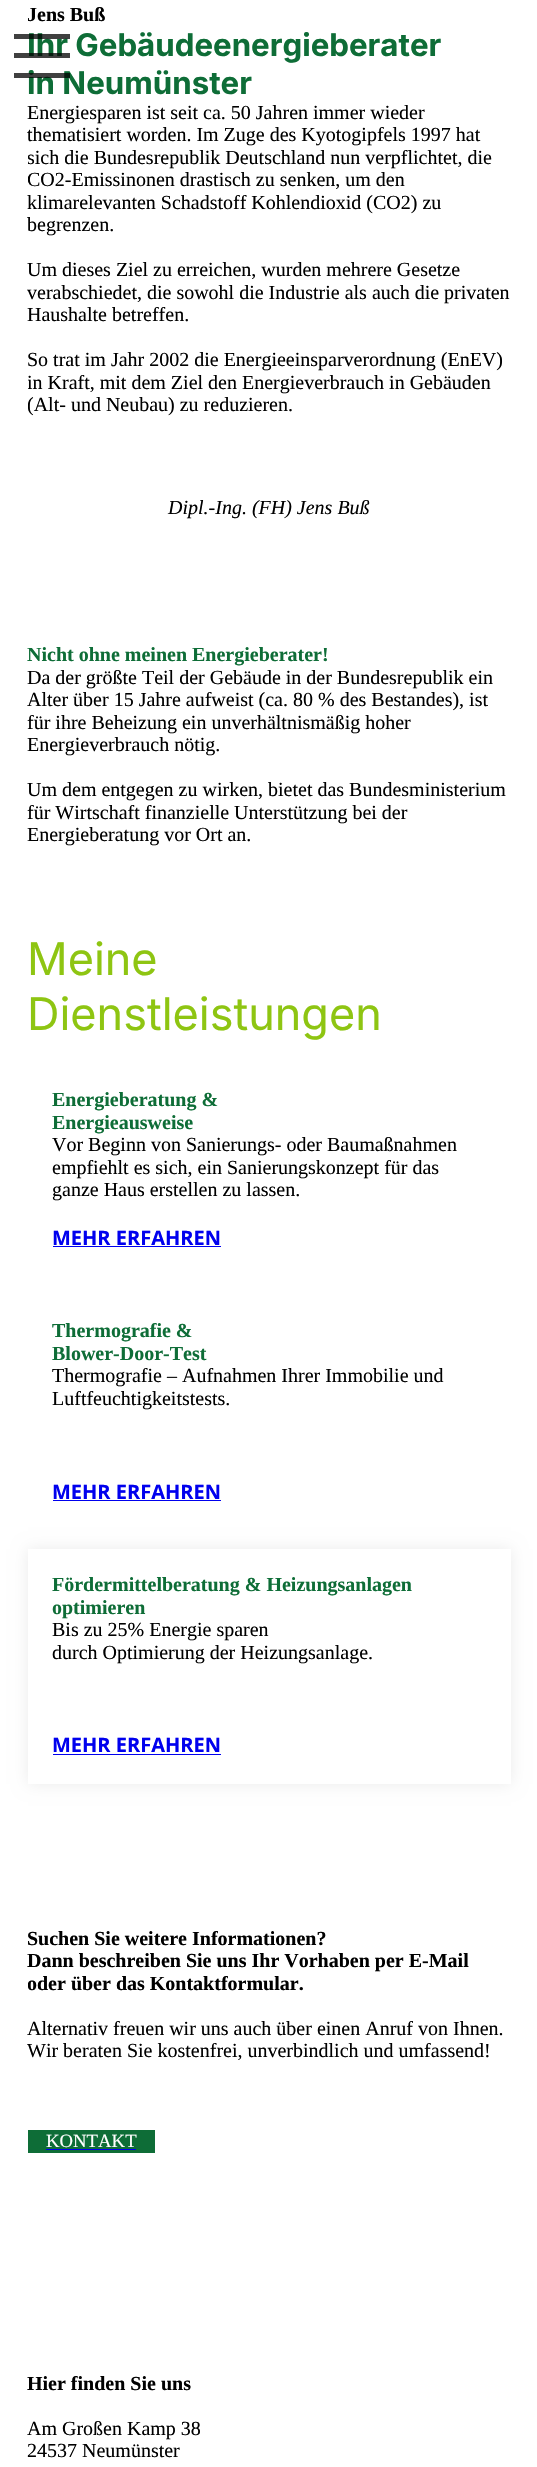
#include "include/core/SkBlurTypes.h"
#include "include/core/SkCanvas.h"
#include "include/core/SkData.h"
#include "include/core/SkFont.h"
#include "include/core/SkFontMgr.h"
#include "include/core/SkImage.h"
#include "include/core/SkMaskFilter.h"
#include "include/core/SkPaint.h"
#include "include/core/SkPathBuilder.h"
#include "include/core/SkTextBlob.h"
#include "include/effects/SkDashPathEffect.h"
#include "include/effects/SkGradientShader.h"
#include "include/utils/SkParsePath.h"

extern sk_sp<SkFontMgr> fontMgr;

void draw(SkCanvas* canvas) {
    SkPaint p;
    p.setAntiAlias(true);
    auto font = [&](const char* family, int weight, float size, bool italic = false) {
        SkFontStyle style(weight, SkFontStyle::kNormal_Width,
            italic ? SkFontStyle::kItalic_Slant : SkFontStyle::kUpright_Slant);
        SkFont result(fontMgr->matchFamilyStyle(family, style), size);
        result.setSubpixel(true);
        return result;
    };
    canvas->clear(0xFFFFFFFF);
    canvas->save();
    canvas->clipRect(SkRect::MakeLTRB(28, 4, 511, 461));
    auto font1 = font("Liberation Serif", 700, 20);
    p.setColor(0xFF000000);
    canvas->drawString("Jens Buß", 27, 21, font1, p);
    canvas->restore();
    auto font2 = font("Inter", 700, 31.25f);
    p.setColor(0xFF0E6D37);
    canvas->drawString("Ihr Gebäudeenergieberater", 27, 56, font2, p);
    canvas->drawString("in Neumünster", 27, 94, font2, p);
    auto font3 = font("Liberation Serif", 400, 20);
    p.setColor(0xFF000000);
    canvas->drawString("Energiesparen ist seit ca. 50 Jahren immer wieder", 27, 119, font3, p);
    canvas->drawString("thematisiert worden. Im Zuge des Kyotogipfels 1997 hat", 27, 141, font3, p);
    canvas->save();
    canvas->clipRect(SkRect::MakeLTRB(28, 4, 511, 461));
    canvas->drawString("sich die Bundesrepublik Deutschland nun verpflichtet, die", 27, 164, font3, p);
    canvas->drawString("CO2-Emissinonen drastisch zu senken, um den", 27, 186, font3, p);
    canvas->restore();
    {
        const struct { const char* s; float x, y; } items[] = {
            {"klimarelevanten Schadstoff Kohlendioxid (CO2) zu", 27, 209},
            {"begrenzen.", 27, 231},
            {"Um dieses Ziel zu erreichen, wurden mehrere Gesetze", 27, 276},
            {"verabschiedet, die sowohl die Industrie als auch die privaten", 27, 299},
            {"Haushalte betreffen.", 27, 321},
            {"So trat im Jahr 2002 die Energieeinsparverordnung (EnEV)", 27, 366},
        };
        for (auto [s, x, y] : items) {
            canvas->drawString(s, x, y, font3, p);
        }
    }
    canvas->save();
    canvas->clipRect(SkRect::MakeLTRB(28, 4, 511, 461));
    canvas->drawString("in Kraft, mit dem Ziel den Energieverbrauch in Gebäuden", 27, 389, font3, p);
    canvas->drawString("(Alt- und Neubau) zu reduzieren.", 27, 411, font3, p);
    canvas->restore();
    auto font4 = font("Liberation Serif", 400, 20, true);
    canvas->drawString("Dipl.-Ing. (FH) Jens Buß", 168, 514, font4, p);
    p.setColor(0xFF0E6D37);
    canvas->drawString("Nicht ohne meinen Energieberater!", 27, 661, font1, p);
    p.setColor(0xFF000000);
    {
        const struct { const char* s; float x, y; } items[] = {
            {"Da der größte Teil der Gebäude in der Bundesrepublik ein", 27, 684},
            {"Alter über 15 Jahre aufweist (ca. 80 % des Bestandes), ist", 27, 706},
            {"für ihre Beheizung ein unverhältnismäßig hoher", 27, 729},
            {"Energieverbrauch nötig.", 27, 751},
            {"Um dem entgegen zu wirken, bietet das Bundesministerium", 27, 796},
            {"für Wirtschaft finanzielle Unterstützung bei der", 27, 819},
            {"Energieberatung vor Ort an.", 27, 841},
        };
        for (auto [s, x, y] : items) {
            canvas->drawString(s, x, y, font3, p);
        }
    }
    auto font5 = font("Inter", 400, 45);
    p.setColor(0xFF8EC512);
    canvas->drawString("Meine", 27, 975, font5, p);
    canvas->drawString("Dienstleistungen", 27, 1030, font5, p);
    p.setColor(0xFF0E6D37);
    canvas->drawString("Energieberatung &", 52, 1106, font1, p);
    canvas->drawString("Energieausweise", 52, 1129, font1, p);
    p.setColor(0xFF000000);
    {
        const struct { const char* s; float x, y; } items[] = {
            {"Vor Beginn von Sanierungs- oder Baumaßnahmen", 52, 1151},
            {"empfiehlt es sich, ein Sanierungskonzept für das", 52, 1174},
            {"ganze Haus erstellen zu lassen.", 52, 1196},
        };
        for (auto [s, x, y] : items) {
            canvas->drawString(s, x, y, font3, p);
        }
    }
    auto font6 = font("Open Sans", 700, 20);
    p.setColor(0xFF0000EE);
    canvas->drawString("MEHR ERFAHREN", 52, 1245, font6, p);
    canvas->drawRect(SkRect::MakeLTRB(53, 1246, 221, 1247), p);
    p.setColor(0xFF0E6D37);
    canvas->drawString("Thermografie &", 52, 1337, font1, p);
    canvas->drawString("Blower-Door-Test", 52, 1360, font1, p);
    p.setColor(0xFF000000);
    canvas->drawString("Thermografie – Aufnahmen Ihrer Immobilie und", 52, 1382, font3, p);
    canvas->drawString("Luftfeuchtigkeitstests.", 52, 1405, font3, p);
    p.setColor(0xFF0000EE);
    canvas->drawString("MEHR ERFAHREN", 52, 1499, font6, p);
    canvas->drawRect(SkRect::MakeLTRB(53, 1500, 221, 1501), p);
    p.setColor(0x14000000);
    p.setMaskFilter(SkMaskFilter::MakeBlur(kNormal_SkBlurStyle, 7.5f));
    canvas->drawRect(SkRect::MakeLTRB(28, 1549, 511, 1784), p);
    p.setMaskFilter(nullptr);
    p.setColor(0xFFFFFFFF);
    canvas->drawRect(SkRect::MakeLTRB(28, 1549, 511, 1784), p);
    p.setColor(0xFF0E6D37);
    canvas->drawString("Fördermittelberatung & Heizungsanlagen", 52, 1591, font1, p);
    canvas->drawString("optimieren", 52, 1614, font1, p);
    p.setColor(0xFF000000);
    canvas->drawString("Bis zu 25% Energie sparen", 52, 1636, font3, p);
    canvas->drawString("durch Optimierung der Heizungsanlage.", 52, 1659, font3, p);
    p.setColor(0xFF0000EE);
    canvas->drawString("MEHR ERFAHREN", 52, 1752, font6, p);
    canvas->drawRect(SkRect::MakeLTRB(53, 1754, 221, 1755), p);
    canvas->save();
    canvas->clipRect(SkRect::MakeLTRB(28, 1928, 511, 2163));
    p.setColor(0xFF000000);
    canvas->drawString("Suchen Sie weitere Informationen?", 27, 1945, font1, p);
    canvas->restore();
    canvas->drawString("Dann beschreiben Sie uns Ihr Vorhaben per E-Mail", 27, 1967, font1, p);
    canvas->save();
    canvas->clipRect(SkRect::MakeLTRB(28, 1928, 511, 2163));
    canvas->drawString("oder über das Kontaktformular.", 27, 1990, font1, p);
    canvas->restore();
    canvas->drawString("Alternativ freuen wir uns auch über einen Anruf von Ihnen.", 27, 2035, font3, p);
    canvas->drawString("Wir beraten Sie kostenfrei, unverbindlich und umfassend!", 27, 2057, font3, p);
    p.setColor(0xFF0E6D37);
    canvas->drawRect(SkRect::MakeLTRB(28, 2130, 155, 2153), p);
    auto font7 = font("Liberation Serif", 400, 18.75f);
    p.setColor(0xFFFFFFFF);
    canvas->drawString("KONTAKT", 46, 2147, font7, p);
    p.setColor(0xFF0000EE);
    canvas->drawRect(SkRect::MakeLTRB(46, 2149, 136, 2150), p);
    p.setColor(0xFF000000);
    canvas->drawString("Hier finden Sie uns", 27, 2390, font1, p);
    canvas->drawString("Am Großen Kamp 38", 27, 2435, font3, p);
    canvas->drawString("24537 Neumünster", 27, 2457, font3, p);
    {
        const struct { float l, t, r, b; SkColor color; } items[] = {
            {14, 34, 70, 39, 0xBF000000},
            {14, 53, 70, 58, 0xBF000000},
            {14, 73, 70, 78, 0xBF000000},
        };
        for (auto [l, t, r, b, color] : items) {
            p.setColor(color);
            canvas->drawRect(SkRect::MakeLTRB(l, t, r, b), p);
        }
    }
}
